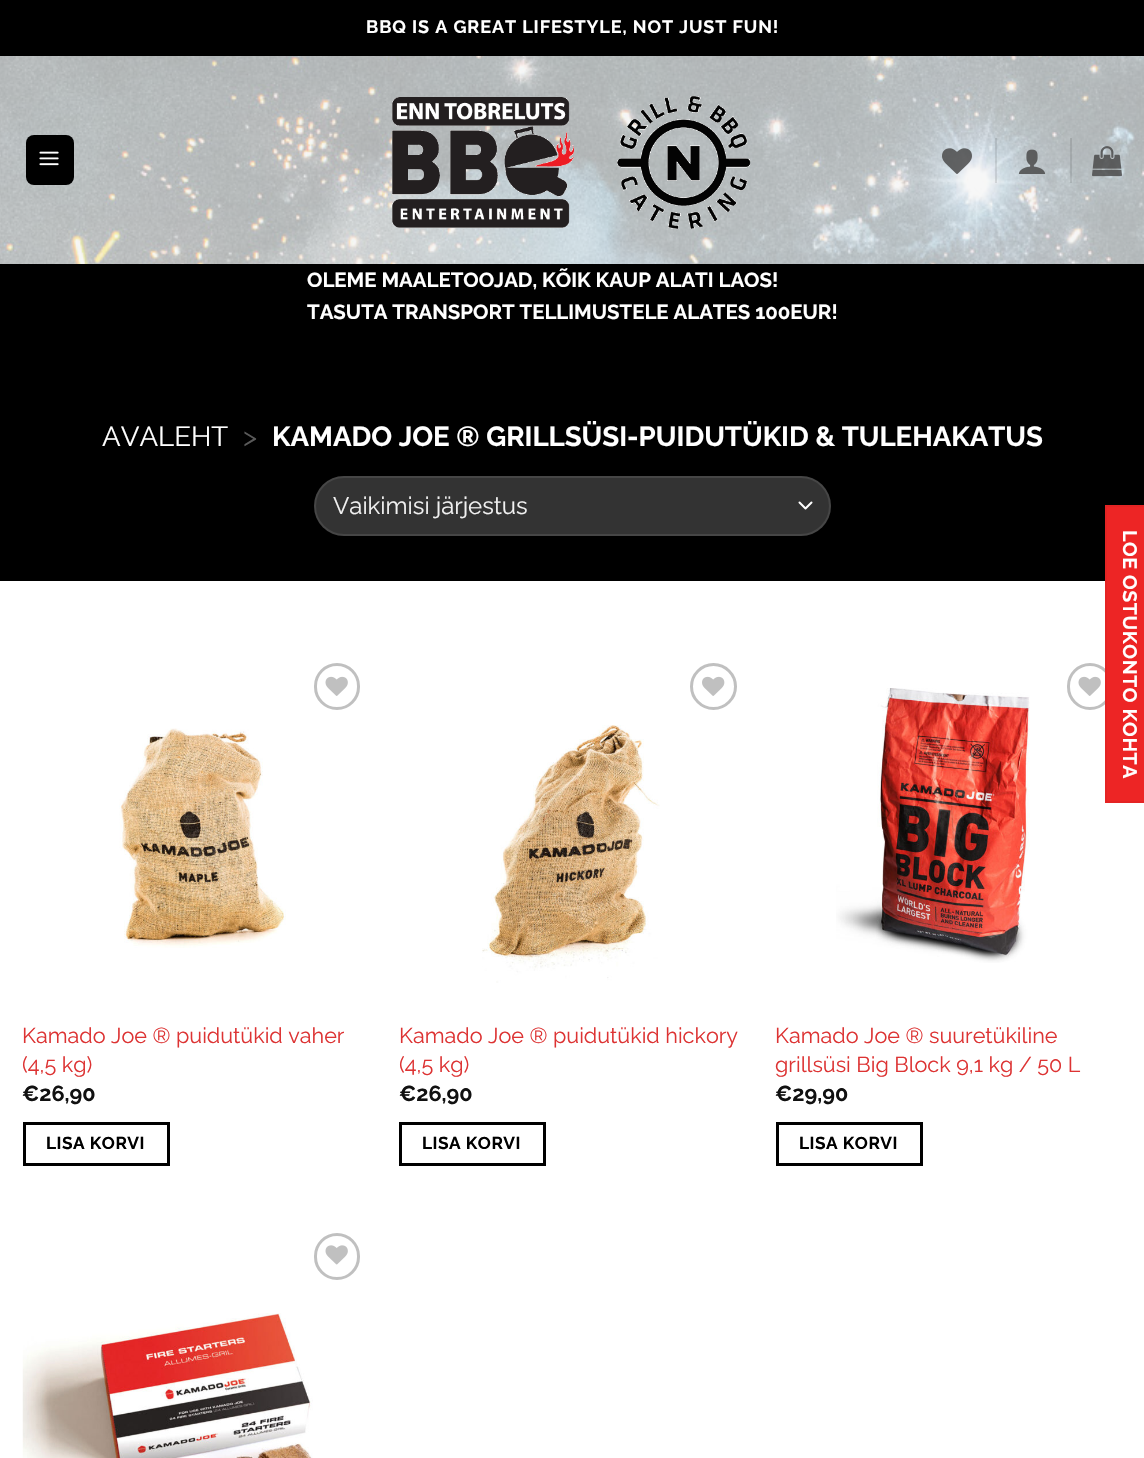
#include "include/core/SkBlurTypes.h"
#include "include/core/SkCanvas.h"
#include "include/core/SkData.h"
#include "include/core/SkFont.h"
#include "include/core/SkFontMgr.h"
#include "include/core/SkImage.h"
#include "include/core/SkMaskFilter.h"
#include "include/core/SkPaint.h"
#include "include/core/SkPathBuilder.h"
#include "include/core/SkTextBlob.h"
#include "include/effects/SkDashPathEffect.h"
#include "include/effects/SkGradientShader.h"
#include "include/utils/SkParsePath.h"

extern sk_sp<SkFontMgr> fontMgr;

void draw(SkCanvas* canvas) {
    SkPaint p;
    p.setAntiAlias(true);
    auto font = [&](const char* family, int weight, float size, bool italic = false) {
        SkFontStyle style(weight, SkFontStyle::kNormal_Width,
            italic ? SkFontStyle::kItalic_Slant : SkFontStyle::kUpright_Slant);
        SkFont result(fontMgr->matchFamilyStyle(family, style), size);
        result.setSubpixel(true);
        return result;
    };
    auto drawTracked = [&](const char* s, float x, float y, const SkFont& font, const SkPaint& ink, float letter, float word) {
        std::vector<SkGlyphID> glyphs(font.countText(s, strlen(s), SkTextEncoding::kUTF8));
        std::vector<float> xs(glyphs.size());
        font.textToGlyphs(s, strlen(s), SkTextEncoding::kUTF8, glyphs);
        font.getXPos(glyphs, xs, x);
        float extra = 0;
        for (size_t i = 0; i < glyphs.size(); i++) {
            xs[i] += extra;
            extra += letter + word * (glyphs[i] == font.unicharToGlyph(' '));
        }
        canvas->drawTextBlob(SkTextBlob::MakeFromPosHGlyphs(glyphs, xs, y, font), 0, 0, ink);
    };
    auto drawPhoto = [&](const char* path, float l, float t, float r, float b) {
        auto image = SkImages::DeferredFromEncodedData(SkData::MakeFromFileName(path));
        canvas->drawImageRect(image, SkRect::MakeLTRB(l, t, r, b), SkSamplingOptions());
    };
    canvas->clear(0xFFFFFFFF);
    p.setColor(0xFF000000);
    canvas->drawRect(SkRect::MakeLTRB(0, 0, 1144, 56), p);
    auto font1 = font("Raleway", 700, 18);
    p.setColor(0xFFFFFFFF);
    drawTracked("BBQ IS A GREAT LIFESTYLE, NOT JUST FUN!", 366, 33, font1, p, 0.9f, 0);
    drawPhoto("media/1.png", 0, 56, 1144, 264);
    p.setColor(0xFF000000);
    canvas->drawRoundRect(SkRect::MakeLTRB(26, 135, 74, 185), 8, 8, p);
    drawPhoto("media/2.png", 39, 151, 59, 166);
    drawPhoto("media/3.png", 392, 96, 751, 229);
    drawPhoto("media/4.png", 942, 148, 972, 174);
    p.setColor(0x1A000000);
    canvas->drawRect(SkRect::MakeLTRB(995, 138, 997, 183), p);
    drawPhoto("media/5.png", 1018, 149, 1046, 174);
    canvas->drawRect(SkRect::MakeLTRB(1070, 138, 1072, 183), p);
    drawPhoto("media/6.png", 1092, 146, 1122, 177);
    p.setColor(0xFF000000);
    canvas->drawRect(SkRect::MakeLTRB(0, 264, 1144, 581), p);
    auto font2 = font("Raleway", 700, 20.4f);
    p.setColor(0xFFFFFFFF);
    canvas->drawString("OLEME MAALETOOJAD, KÕIK KAUP ALATI LAOS!", 307, 287, font2, p);
    canvas->drawString("TASUTA TRANSPORT TELLIMUSTELE ALATES 100EUR!", 307, 319, font2, p);
    auto font3 = font("Raleway", 400, 27.6f);
    canvas->drawString("AVALEHT", 102, 446, font3, p);
    p.setColor(0xFF595959);
    canvas->drawString(">", 243, 446, font3, p);
    auto font4 = font("Raleway", 700, 27.6f);
    p.setColor(0xFFFFFFFF);
    canvas->drawString("KAMADO JOE ® GRILLSÜSI-PUIDUTÜKID & TULEHAKATUS", 272, 446, font4, p);
    p.setColor(0xFF333333);
    canvas->drawRoundRect(SkRect::MakeLTRB(314, 476, 831, 536), 30, 30, p);
    p.setStyle(SkPaint::kStroke_Style);
    p.setStrokeWidth(2);
    p.setStrokeCap(SkPaint::kRound_Cap);
    p.setStrokeJoin(SkPaint::kRound_Join);
    p.setColor(0xFFFFFFFF);
    canvas->drawPath(SkPathBuilder().moveTo(799.5f, 502.5f).lineTo(805.5f, 508.5f).lineTo(811.5f, 502.5f).detach(), p);
    p.setStrokeCap(SkPaint::kButt_Cap);
    p.setStrokeJoin(SkPaint::kMiter_Join);
    p.setColor(0x17FFFFFF);
    canvas->drawRoundRect(SkRect::MakeLTRB(315, 477, 830, 535), 29, 29, p);
    auto font5 = font("Raleway", 400, 24);
    p.setStyle(SkPaint::kFill_Style);
    p.setColor(0xFFF1F1F1);
    canvas->drawString("Vaikimisi järjestus", 333, 514, font5, p);
    p.setStyle(SkPaint::kStroke_Style);
    p.setStrokeWidth(3);
    p.setColor(0xFFC0C0C0);
    canvas->drawRoundRect(SkRect::MakeLTRB(1068.5f, 664.5f, 1111.5f, 708.5f), 21.5f, 21.5f, p);
    p.setStyle(SkPaint::kFill_Style);
    p.setColor(0xFFED2525);
    canvas->drawRect(SkRect::MakeLTRB(1105, 505, 1144, 803), p);
    p.setStyle(SkPaint::kStroke_Style);
    p.setStrokeWidth(1.5f);
    p.setColor(0xFFE12323);
    canvas->drawPath(SkPathBuilder().moveTo(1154, 506).lineTo(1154, 802).lineTo(1106, 802).lineTo(1106, 506).close().detach(), p);
    auto font6 = font("Raleway", 700, 19.5f);
    p.setStyle(SkPaint::kFill_Style);
    p.setColor(0xFFFFFFFF);
    canvas->save();
    canvas->rotate(90, 1123, 530);
    drawTracked("LOE OSTUKONTO KOHTA", 1123, 530, font6, p, 0.6f, 0);
    canvas->restore();
    p.setStyle(SkPaint::kStroke_Style);
    p.setStrokeWidth(3);
    p.setColor(0xFFC0C0C0);
    canvas->drawRoundRect(SkRect::MakeLTRB(315.5f, 664.5f, 358.5f, 708.5f), 21.5f, 21.5f, p);
    drawPhoto("media/7.png", 325, 676, 348, 696);
    drawPhoto("media/8.png", 119, 728, 286, 948);
    auto font7 = font("Raleway", 400, 21.6f);
    p.setStyle(SkPaint::kFill_Style);
    p.setColor(0xFFDD3333);
    canvas->drawString("Kamado Joe ® puidutükid vaher", 22, 1043, font7, p);
    canvas->drawString("(4,5 kg)", 22, 1072, font7, p);
    auto font8 = font("Raleway", 700, 21.6f);
    p.setColor(0xFF111111);
    canvas->drawString("€26,90", 22, 1101, font8, p);
    p.setStyle(SkPaint::kStroke_Style);
    p.setColor(0xFF000000);
    canvas->drawRect(SkRect::MakeLTRB(24.5f, 1123.5f, 168.5f, 1164.5f), p);
    auto font9 = font("Raleway", 700, 17.25f);
    p.setStyle(SkPaint::kFill_Style);
    drawTracked("LISA KORVI", 46, 1149, font9, p, 0.5f, 0);
    p.setStyle(SkPaint::kStroke_Style);
    p.setColor(0xFFC0C0C0);
    canvas->drawCircle(713.5f, 686.5f, 22, p);
    drawPhoto("media/9.png", 702, 676, 725, 696);
    drawPhoto("media/10.png", 482, 725, 660, 983);
    p.setStyle(SkPaint::kFill_Style);
    p.setColor(0xFFDD3333);
    canvas->drawString("Kamado Joe ® puidutükid hickory", 399, 1043, font7, p);
    canvas->drawString("(4,5 kg)", 399, 1072, font7, p);
    p.setColor(0xFF111111);
    canvas->drawString("€26,90", 399, 1101, font8, p);
    p.setStyle(SkPaint::kStroke_Style);
    p.setColor(0xFF000000);
    canvas->drawRect(SkRect::MakeLTRB(400.5f, 1123.5f, 544.5f, 1164.5f), p);
    p.setStyle(SkPaint::kFill_Style);
    drawTracked("LISA KORVI", 422, 1149, font9, p, 0.5f, 0);
    drawPhoto("media/11.png", 836, 688, 1030, 963);
    drawPhoto("media/7.png", 1078, 676, 1101, 696);
    p.setColor(0xFFDD3333);
    canvas->drawString("Kamado Joe ® suuretükiline", 775, 1043, font7, p);
    canvas->drawString("grillsüsi Big Block 9,1 kg / 50 L", 775, 1072, font7, p);
    p.setColor(0xFF111111);
    canvas->drawString("€29,90", 775, 1101, font8, p);
    p.setStyle(SkPaint::kStroke_Style);
    p.setColor(0xFF000000);
    canvas->drawRect(SkRect::MakeLTRB(777.5f, 1123.5f, 921.5f, 1164.5f), p);
    p.setStyle(SkPaint::kFill_Style);
    drawTracked("LISA KORVI", 799, 1149, font9, p, 0.5f, 0);
    p.setStyle(SkPaint::kStroke_Style);
    p.setColor(0xFFC0C0C0);
    canvas->drawRoundRect(SkRect::MakeLTRB(315.5f, 1234.5f, 358.5f, 1278.5f), 21.5f, 21.5f, p);
    drawPhoto("media/12.png", 325, 1245, 348, 1265);
    drawPhoto("media/13.png", 22, 1313, 313, 1458);
}
